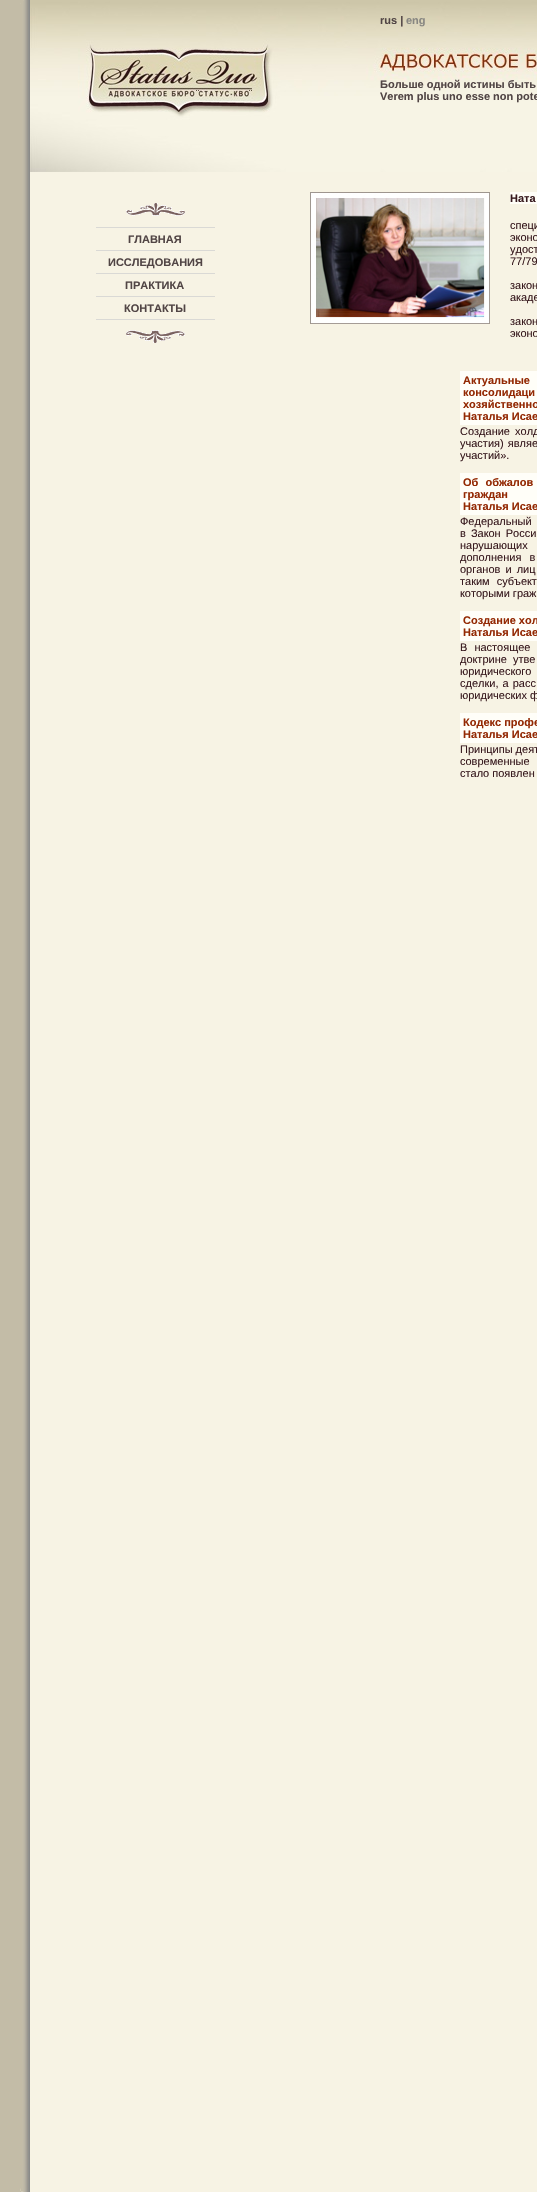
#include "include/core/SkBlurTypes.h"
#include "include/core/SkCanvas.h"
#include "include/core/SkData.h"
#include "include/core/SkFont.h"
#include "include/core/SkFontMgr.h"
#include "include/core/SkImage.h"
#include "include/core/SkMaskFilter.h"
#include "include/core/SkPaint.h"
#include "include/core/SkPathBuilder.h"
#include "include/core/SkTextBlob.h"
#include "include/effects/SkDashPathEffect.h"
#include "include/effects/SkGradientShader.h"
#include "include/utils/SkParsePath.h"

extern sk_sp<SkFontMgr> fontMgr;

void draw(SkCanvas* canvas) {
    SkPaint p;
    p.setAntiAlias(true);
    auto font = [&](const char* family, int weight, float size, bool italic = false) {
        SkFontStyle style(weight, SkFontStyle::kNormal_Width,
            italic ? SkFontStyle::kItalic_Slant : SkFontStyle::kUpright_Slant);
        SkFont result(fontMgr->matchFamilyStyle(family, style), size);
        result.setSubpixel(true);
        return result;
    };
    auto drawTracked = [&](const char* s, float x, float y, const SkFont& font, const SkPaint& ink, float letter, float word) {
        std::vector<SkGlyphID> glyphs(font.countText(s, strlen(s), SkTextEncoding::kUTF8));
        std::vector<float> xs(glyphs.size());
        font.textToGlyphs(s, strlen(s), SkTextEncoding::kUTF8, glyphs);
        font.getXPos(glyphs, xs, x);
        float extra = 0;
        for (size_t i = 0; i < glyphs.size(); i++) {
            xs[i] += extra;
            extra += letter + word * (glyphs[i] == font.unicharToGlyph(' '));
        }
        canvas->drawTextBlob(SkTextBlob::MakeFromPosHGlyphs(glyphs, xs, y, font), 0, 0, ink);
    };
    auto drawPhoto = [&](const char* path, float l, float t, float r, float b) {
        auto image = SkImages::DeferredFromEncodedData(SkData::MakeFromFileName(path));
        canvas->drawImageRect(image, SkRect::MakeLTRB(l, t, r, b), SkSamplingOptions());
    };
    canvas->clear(0xFFC3BCA7);
    p.setColor(0xFFF7F3E4);
    canvas->drawRoundRect(SkRect::MakeLTRB(20, 0, 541, 2192), 4, 4, p);
    drawPhoto("media/1.png", 20, 0, 30, 2192);
    p.setColor(0xFFC3BCA7);
    canvas->drawRect(SkRect::MakeLTRB(20, 0, 23, 3), p);
    drawPhoto("media/2.png", 30, 0, 537, 172);
    auto font1 = font("Liberation Sans", 700, 11);
    p.setColor(0xFF514545);
    canvas->drawString("rus |", 380, 24, font1, p);
    p.setColor(0xFF888782);
    canvas->drawString("eng", 406, 24, font1, p);
    p.setColor(0xFF514545);
    canvas->drawString("Больше одной истины быть", 380, 88, font1, p);
    canvas->drawString("Verem plus uno esse non pote", 380, 100, font1, p);
    drawPhoto("media/3.png", 126, 203, 185, 216);
    p.setColor(0xFFDAD9D5);
    canvas->drawRect(SkRect::MakeLTRB(96, 227, 215, 228), p);
    canvas->drawRect(SkRect::MakeLTRB(96, 250, 215, 251), p);
    p.setColor(0xFF514545);
    canvas->drawString("ГЛАВНАЯ", 128, 243, font1, p);
    p.setColor(0xFFDAD9D5);
    canvas->drawRect(SkRect::MakeLTRB(96, 273, 215, 274), p);
    p.setColor(0xFF514545);
    canvas->drawString("ИССЛЕДОВАНИЯ", 108, 266, font1, p);
    p.setColor(0xFFDAD9D5);
    canvas->drawRect(SkRect::MakeLTRB(96, 296, 215, 297), p);
    p.setColor(0xFF514545);
    canvas->drawString("ПРАКТИКА", 125, 289, font1, p);
    p.setColor(0xFFDAD9D5);
    canvas->drawRect(SkRect::MakeLTRB(96, 319, 215, 320), p);
    p.setColor(0xFF514545);
    canvas->drawString("КОНТАКТЫ", 124, 312, font1, p);
    drawPhoto("media/4.png", 126, 330, 185, 343);
    drawPhoto("media/5.png", 310, 192, 490, 324);
    p.setColor(0xFFFFFEF8);
    canvas->drawRect(SkRect::MakeLTRB(510, 192, 537, 204), p);
    p.setColor(0xFF37191E);
    canvas->drawString("Ната", 510, 202, font1, p);
    auto font2 = font("Liberation Sans", 400, 11);
    drawTracked("cпеци", 510, 229, font2, p, 0, 6);
    canvas->drawString("эконо", 510, 241, font2, p);
    drawTracked("удост", 510, 253, font2, p, 0, 4);
    canvas->drawString("77/79", 510, 265, font2, p);
    drawTracked("закон", 510, 289, font2, p, 0, 3);
    canvas->drawString("акаде", 510, 301, font2, p);
    drawTracked("закон", 510, 325, font2, p, 0, 9);
    canvas->drawString("эконо", 510, 337, font2, p);
    p.setColor(0xFFFFFEF8);
    canvas->drawRect(SkRect::MakeLTRB(460, 371, 537, 425), p);
    p.setColor(0xFF932903);
    drawTracked("Актуальные", 463, 384, font1, p, 0, 10);
    drawTracked("консолидаци", 463, 396, font1, p, 0, 8);
    canvas->drawString("хозяйственно", 463, 408, font1, p);
    canvas->drawString("Наталья Исае", 463, 420, font1, p);
    p.setColor(0xFF37191E);
    drawTracked("Создание холд", 460, 435, font2, p, 0, 2);
    drawTracked("участия) являе", 460, 447, font2, p, 0, 1);
    canvas->drawString("участий».", 460, 459, font2, p);
    p.setColor(0xFFFFFEF8);
    canvas->drawRect(SkRect::MakeLTRB(460, 473, 537, 515), p);
    p.setColor(0xFF932903);
    drawTracked("Об обжалов", 463, 486, font1, p, 0, 4);
    canvas->drawString("граждан", 463, 498, font1, p);
    canvas->drawString("Наталья Исае", 463, 510, font1, p);
    p.setColor(0xFF37191E);
    canvas->drawString("Федеральный", 460, 525, font2, p);
    drawTracked("в Закон Росси", 460, 537, font2, p, 0, 2);
    drawTracked("нарушающих", 460, 549, font2, p, 0, 5);
    drawTracked("дополнения в", 460, 561, font2, p, 0, 5);
    drawTracked("органов и лиц", 460, 573, font2, p, 0, 2);
    drawTracked("таким субъект", 460, 585, font2, p, 0, 4);
    canvas->drawString("которыми граж", 460, 597, font2, p);
    p.setColor(0xFFFFFEF8);
    canvas->drawRect(SkRect::MakeLTRB(460, 611, 537, 641), p);
    p.setColor(0xFF932903);
    canvas->drawString("Создание хол", 463, 624, font1, p);
    canvas->drawString("Наталья Исае", 463, 636, font1, p);
    p.setColor(0xFF37191E);
    drawTracked("В настоящее", 460, 651, font2, p, 0, 4);
    drawTracked("доктрине утве", 460, 663, font2, p, 0, 3);
    drawTracked("юридического", 460, 675, font2, p, 0, 7);
    drawTracked("сделки, а расс", 460, 687, font2, p, 0, 1);
    canvas->drawString("юридических ф", 460, 699, font2, p);
    p.setColor(0xFFFFFEF8);
    canvas->drawRect(SkRect::MakeLTRB(460, 713, 537, 743), p);
    p.setColor(0xFF932903);
    canvas->drawString("Кодекс профе", 463, 726, font1, p);
    canvas->drawString("Наталья Исае", 463, 738, font1, p);
    p.setColor(0xFF37191E);
    canvas->drawString("Принципы деят", 460, 753, font2, p);
    drawTracked("современные", 460, 765, font2, p, 0, 4);
    canvas->drawString("стало появлен", 460, 777, font2, p);
}
